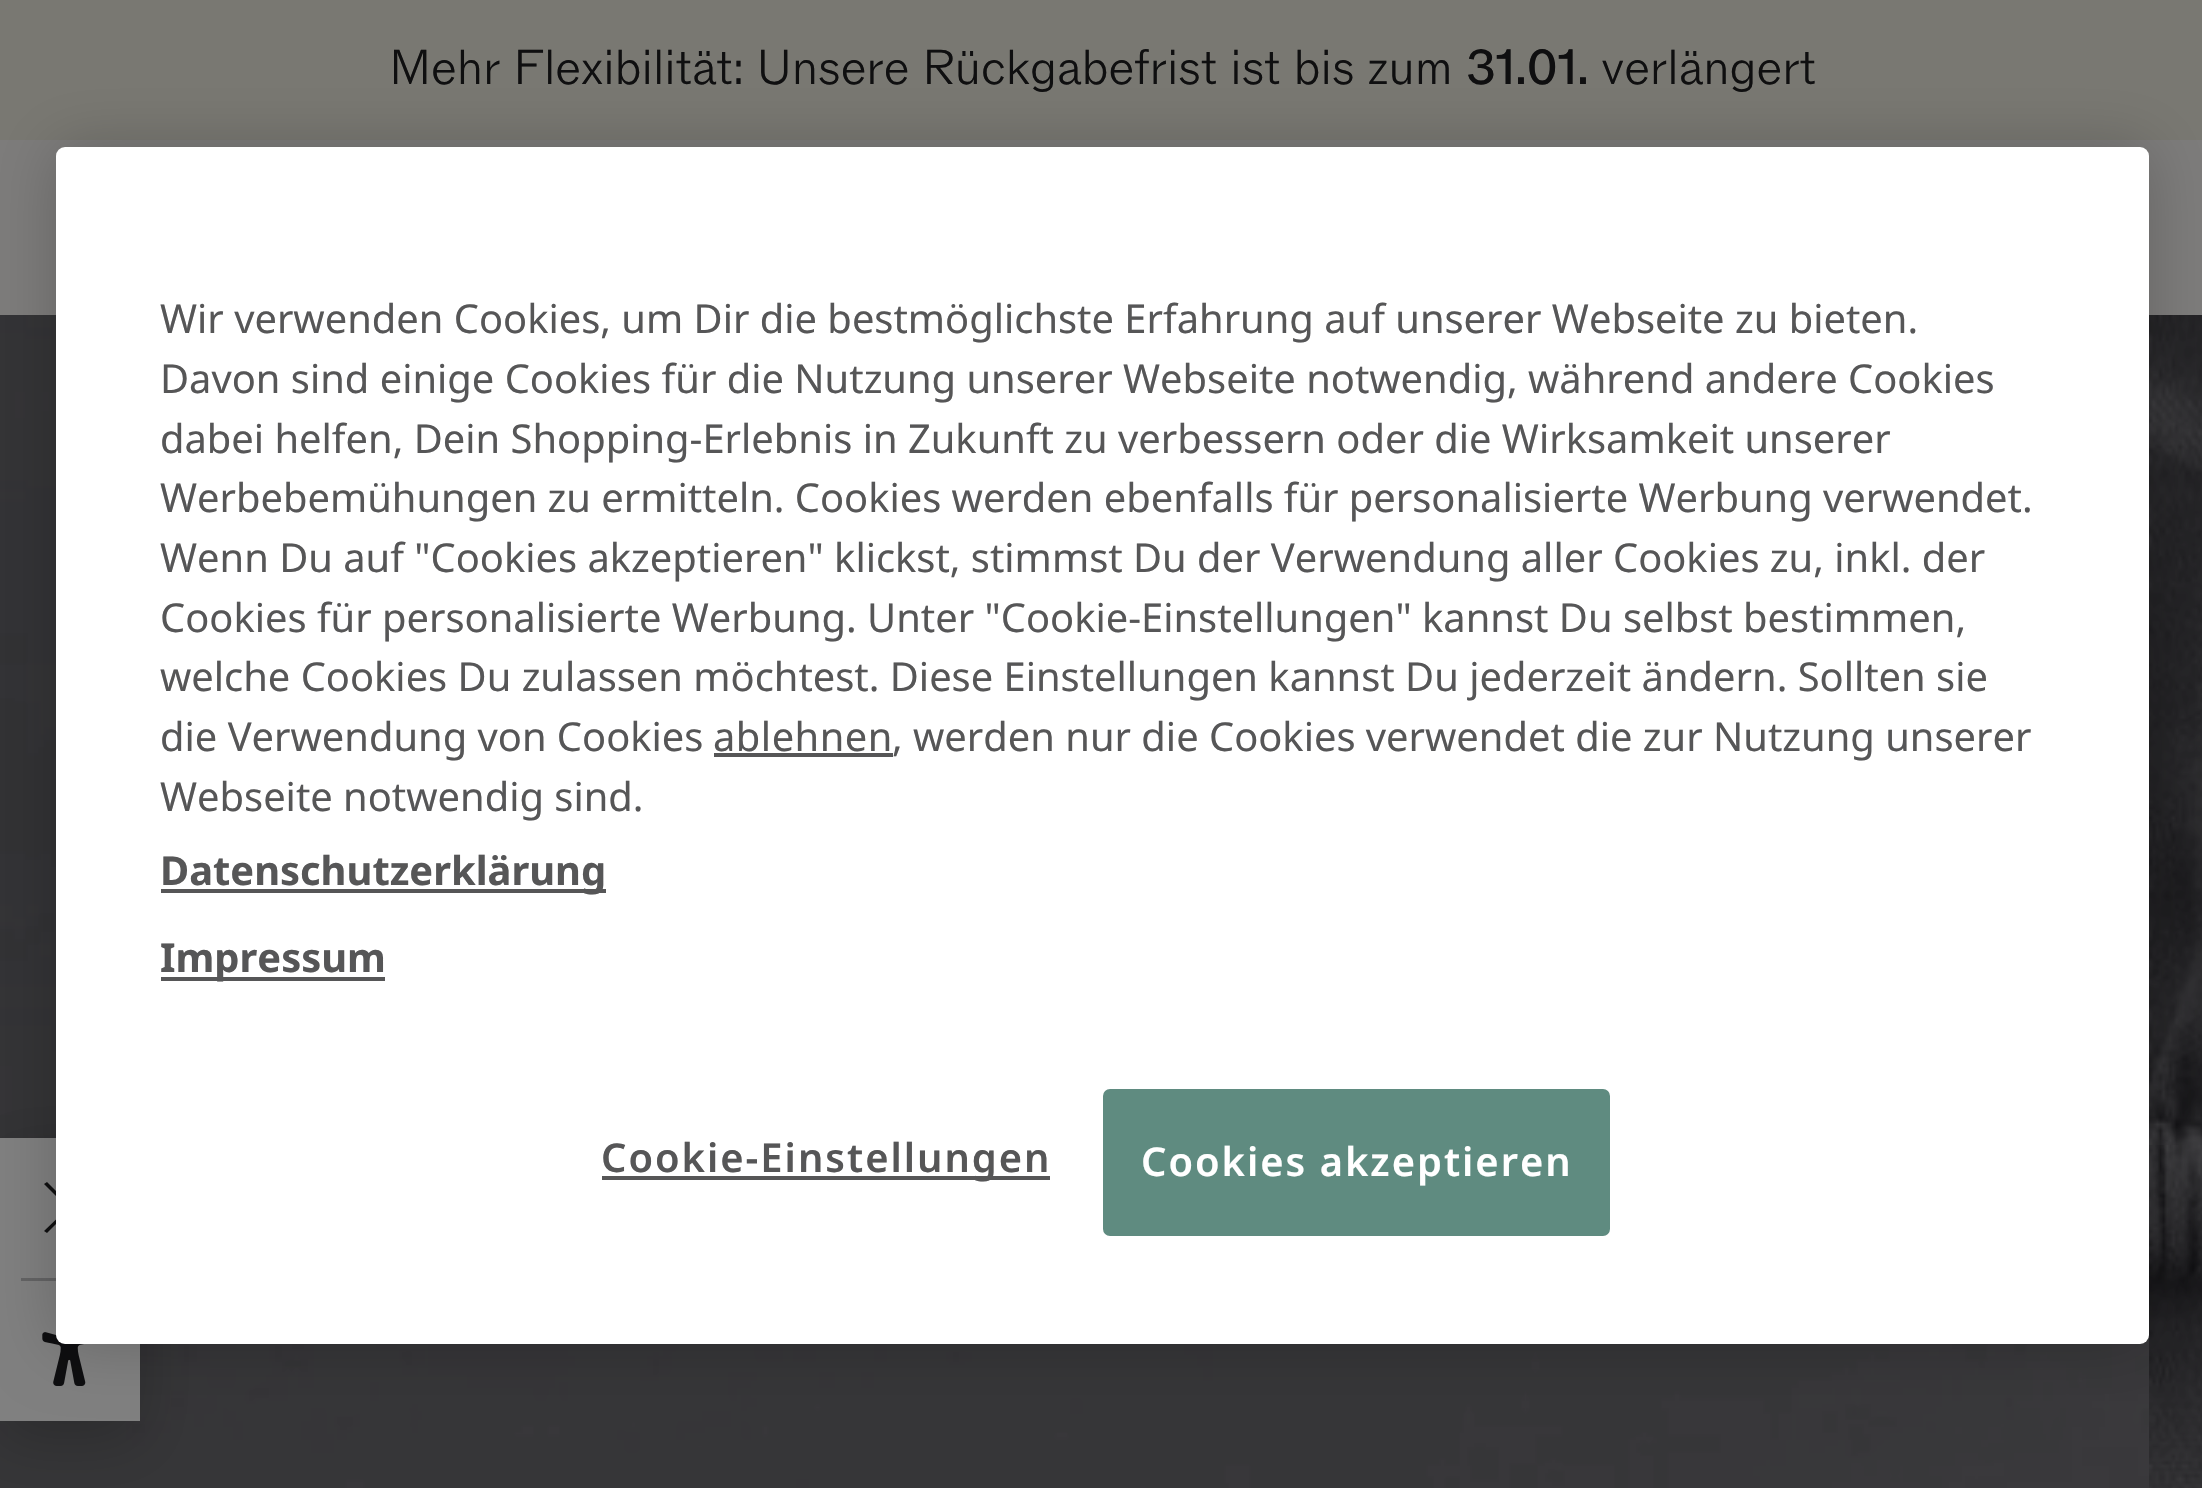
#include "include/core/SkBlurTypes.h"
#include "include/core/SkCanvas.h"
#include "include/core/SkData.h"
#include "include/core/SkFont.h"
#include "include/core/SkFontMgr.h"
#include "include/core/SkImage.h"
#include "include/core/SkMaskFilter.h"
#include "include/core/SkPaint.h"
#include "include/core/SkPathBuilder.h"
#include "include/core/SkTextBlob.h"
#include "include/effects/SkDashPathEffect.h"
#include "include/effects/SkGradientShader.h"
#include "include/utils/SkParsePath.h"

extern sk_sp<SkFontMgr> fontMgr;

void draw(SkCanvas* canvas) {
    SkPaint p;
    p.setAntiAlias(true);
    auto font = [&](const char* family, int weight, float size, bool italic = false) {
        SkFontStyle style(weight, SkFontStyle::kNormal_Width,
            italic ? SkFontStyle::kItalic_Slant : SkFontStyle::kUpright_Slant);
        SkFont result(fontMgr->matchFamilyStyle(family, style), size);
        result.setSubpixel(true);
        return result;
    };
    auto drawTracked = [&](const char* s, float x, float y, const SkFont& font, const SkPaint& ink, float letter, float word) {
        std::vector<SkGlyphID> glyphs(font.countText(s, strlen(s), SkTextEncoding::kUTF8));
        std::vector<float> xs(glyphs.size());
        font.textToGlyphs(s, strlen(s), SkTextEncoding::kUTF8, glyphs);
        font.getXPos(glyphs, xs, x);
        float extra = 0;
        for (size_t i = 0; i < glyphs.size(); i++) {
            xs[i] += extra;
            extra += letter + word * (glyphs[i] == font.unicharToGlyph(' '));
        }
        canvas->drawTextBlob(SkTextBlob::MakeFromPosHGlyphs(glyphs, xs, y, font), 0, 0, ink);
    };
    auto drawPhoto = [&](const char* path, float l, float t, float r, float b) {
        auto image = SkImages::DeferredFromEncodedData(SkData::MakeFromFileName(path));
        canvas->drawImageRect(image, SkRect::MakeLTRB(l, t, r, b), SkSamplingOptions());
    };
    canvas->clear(0xFFFFFFFF);
    p.setColor(0xFF797872);
    canvas->drawRect(SkRect::MakeLTRB(0, 0, 2202, 140), p);
    auto font1 = font("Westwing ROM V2", 300, 49);
    p.setColor(0xFF0F0F10);
    drawTracked("Mehr Flexibilität: Unsere Rückgabefrist ist bis zum", 389, 84, font1, p, -0.5f, 0);
    auto font2 = font("Westwing ROM V2", 400, 49);
    drawTracked("31.01.", 1466, 84, font2, p, -0.5f, 0);
    drawTracked("verlängert", 1601, 84, font1, p, -0.5f, 0);
    p.setColor(0xFF7D7C7B);
    canvas->drawRect(SkRect::MakeLTRB(0, 140, 2202, 315), p);
    drawPhoto("media/1.png", 0, 315, 2149, 1488);
    drawPhoto("media/2.png", 2149, 315, 2202, 1488);
    p.setColor(0x33000000);
    p.setMaskFilter(SkMaskFilter::MakeBlur(kNormal_SkBlurStyle, 30));
    canvas->drawRect(SkRect::MakeLTRB(0, 1155, 140, 1439), p);
    p.setMaskFilter(nullptr);
    p.setColor(0xFF808080);
    canvas->drawRect(SkRect::MakeLTRB(0, 1138, 56, 1281), p);
    p.setColor(0xFF0F0F10);
    canvas->drawPath(SkPathBuilder().moveTo(96, 1231).lineTo(93, 1233).lineTo(70, 1210).lineTo(47, 1233).lineTo(44, 1231).lineTo(68, 1208).lineTo(44, 1184).lineTo(47, 1182).lineTo(70, 1205).lineTo(93, 1182).lineTo(96, 1184).lineTo(72, 1208).close().detach(), p);
    p.setColor(0xFF636364);
    canvas->drawRect(SkRect::MakeLTRB(21, 1278, 56, 1281), p);
    p.setColor(0xFF808080);
    canvas->drawRect(SkRect::MakeLTRB(0, 1281, 140, 1421), p);
    drawPhoto("media/3.png", 42, 1332, 86, 1386);
    p.setColor(0x33000000);
    p.setMaskFilter(SkMaskFilter::MakeBlur(kNormal_SkBlurStyle, 31.5f));
    canvas->drawRoundRect(SkRect::MakeLTRB(56, 147, 2149, 1344), 9, 9, p);
    p.setMaskFilter(nullptr);
    p.setColor(0xFFFFFFFF);
    canvas->drawRoundRect(SkRect::MakeLTRB(56, 147, 2149, 1344), 9, 9, p);
    auto font3 = font("Noto Sans", 400, 39.85f);
    p.setColor(0xFF565657);
    {
        const struct { const char* s; float x, y; } items[] = {
            {"Wir verwenden Cookies, um Dir die bestmöglichste Erfahrung auf unserer Webseite zu bieten.", 160, 333},
            {"Davon sind einige Cookies für die Nutzung unserer Webseite notwendig, während andere Cookies", 160, 393},
            {"dabei helfen, Dein Shopping-Erlebnis in Zukunft zu verbessern oder die Wirksamkeit unserer", 160, 453},
        };
        for (auto [s, x, y] : items) {
            canvas->drawString(s, x, y, font3, p);
        }
    }
    drawTracked("Werbebemühungen zu ermitteln. Cookies werden ebenfalls für personalisierte Werbung verwendet.", 160, 512, font3, p, 0, -0.1f);
    {
        const struct { const char* s; float x, y; } items[] = {
            {"Wenn Du auf \"Cookies akzeptieren\" klickst, stimmst Du der Verwendung aller Cookies zu, inkl. der", 160, 572},
            {"Cookies für personalisierte Werbung. Unter \"Cookie-Einstellungen\" kannst Du selbst bestimmen,", 160, 632},
            {"welche Cookies Du zulassen möchtest. Diese Einstellungen kannst Du jederzeit ändern. Sollten sie", 160, 691},
            {"die Verwendung von Cookies", 160, 751},
        };
        for (auto [s, x, y] : items) {
            canvas->drawString(s, x, y, font3, p);
        }
    }
    drawTracked("ablehnen", 713, 751, font3, p, 0.5f, 0);
    canvas->drawRect(SkRect::MakeLTRB(714, 753, 893, 757), p);
    canvas->drawString(", werden nur die Cookies verwendet die zur Nutzung unserer", 892, 751, font3, p);
    canvas->drawString("Webseite notwendig sind.", 160, 811, font3, p);
    canvas->drawRect(SkRect::MakeLTRB(161, 889, 606, 893), p);
    auto font4 = font("Noto Sans", 700, 39.85f);
    canvas->drawString("Datenschutzerklärung", 160, 885, font4, p);
    canvas->drawRect(SkRect::MakeLTRB(161, 977, 385, 981), p);
    canvas->drawString("Impressum", 160, 972, font4, p);
    canvas->drawRect(SkRect::MakeLTRB(602, 1176, 1050, 1180), p);
    auto font5 = font("Noto Sans", 600, 39.85f);
    drawTracked("Cookie-Einstellungen", 601, 1172, font5, p, 2, 0);
    p.setColor(0xFF5F8B80);
    canvas->drawRoundRect(SkRect::MakeLTRB(1105, 1091, 1608, 1234), 5, 5, p);
    p.setStyle(SkPaint::kStroke_Style);
    p.setStrokeWidth(4);
    canvas->drawRoundRect(SkRect::MakeLTRB(1105, 1091, 1608, 1234), 5, 5, p);
    p.setStyle(SkPaint::kFill_Style);
    p.setColor(0xFFFFFFFF);
    drawTracked("Cookies akzeptieren", 1141, 1176, font5, p, 2, 0);
}
